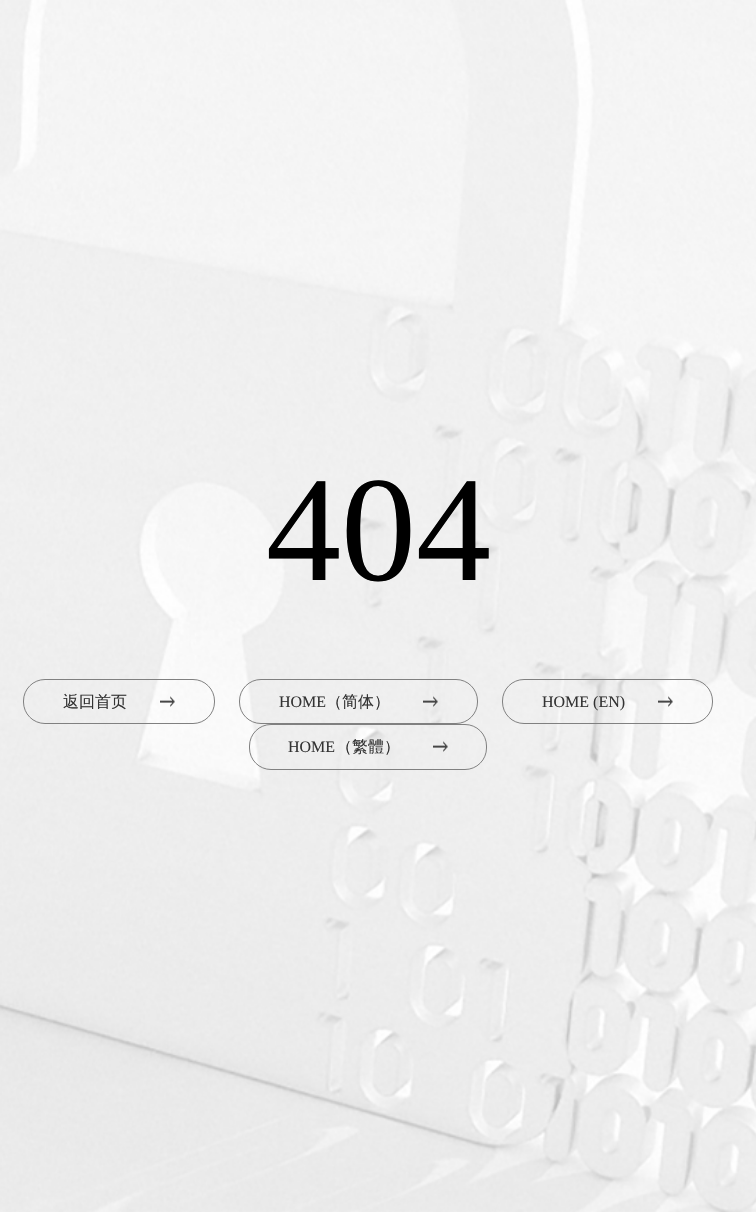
#include "include/core/SkBlurTypes.h"
#include "include/core/SkCanvas.h"
#include "include/core/SkData.h"
#include "include/core/SkFont.h"
#include "include/core/SkFontMgr.h"
#include "include/core/SkImage.h"
#include "include/core/SkMaskFilter.h"
#include "include/core/SkPaint.h"
#include "include/core/SkPathBuilder.h"
#include "include/core/SkTextBlob.h"
#include "include/effects/SkDashPathEffect.h"
#include "include/effects/SkGradientShader.h"
#include "include/utils/SkParsePath.h"

extern sk_sp<SkFontMgr> fontMgr;

void draw(SkCanvas* canvas) {
    SkPaint p;
    p.setAntiAlias(true);
    auto font = [&](const char* family, int weight, float size, bool italic = false) {
        SkFontStyle style(weight, SkFontStyle::kNormal_Width,
            italic ? SkFontStyle::kItalic_Slant : SkFontStyle::kUpright_Slant);
        SkFont result(fontMgr->matchFamilyStyle(family, style), size);
        result.setSubpixel(true);
        return result;
    };
    auto drawPhoto = [&](const char* path, float l, float t, float r, float b) {
        auto image = SkImages::DeferredFromEncodedData(SkData::MakeFromFileName(path));
        canvas->drawImageRect(image, SkRect::MakeLTRB(l, t, r, b), SkSamplingOptions());
    };
    canvas->clear(0xFFFFFFFF);
    drawPhoto("media/1.png", 0, 0, 756, 1212);
    auto font1 = font("Liberation Serif", 400, 150);
    p.setColor(0xFF000000);
    canvas->drawString("404", 266, 580, font1, p);
    p.setStyle(SkPaint::kStroke_Style);
    p.setStrokeWidth(1);
    p.setColor(0xFF808080);
    canvas->drawRoundRect(SkRect::MakeLTRB(23.5f, 679.5f, 214.5f, 723.5f), 21.5f, 21.5f, p);
    auto font2 = font("WenQuanYi Zen Hei", 500, 16);
    p.setStyle(SkPaint::kFill_Style);
    p.setColor(0xFF333333);
    canvas->drawString("返回首页", 63, 707, font2, p);
    drawPhoto("media/2.png", 160, 696, 175, 707);
    p.setStyle(SkPaint::kStroke_Style);
    p.setColor(0xFF808080);
    canvas->drawRoundRect(SkRect::MakeLTRB(239.5f, 679.5f, 477.5f, 723.5f), 21.5f, 21.5f, p);
    auto font3 = font("Liberation Serif", 400, 16);
    p.setStyle(SkPaint::kFill_Style);
    p.setColor(0xFF333333);
    canvas->drawString("HOME", 279, 707, font3, p);
    canvas->drawString("（简体）", 326, 707, font2, p);
    drawPhoto("media/3.png", 423, 696, 438, 707);
    p.setStyle(SkPaint::kStroke_Style);
    p.setColor(0xFF808080);
    canvas->drawRoundRect(SkRect::MakeLTRB(502.5f, 679.5f, 712.5f, 723.5f), 21.5f, 21.5f, p);
    p.setStyle(SkPaint::kFill_Style);
    p.setColor(0xFF333333);
    canvas->drawString("HOME (EN)", 542, 707, font3, p);
    drawPhoto("media/4.png", 658, 696, 673, 707);
    p.setStyle(SkPaint::kStroke_Style);
    p.setColor(0xFF808080);
    canvas->drawRoundRect(SkRect::MakeLTRB(249.5f, 724.5f, 486.5f, 769.5f), 21.5f, 21.5f, p);
    p.setStyle(SkPaint::kFill_Style);
    p.setColor(0xFF333333);
    canvas->drawString("HOME", 288, 752, font3, p);
    canvas->drawString("（繁體）", 336, 752, font2, p);
    drawPhoto("media/5.png", 433, 741, 448, 752);
}
